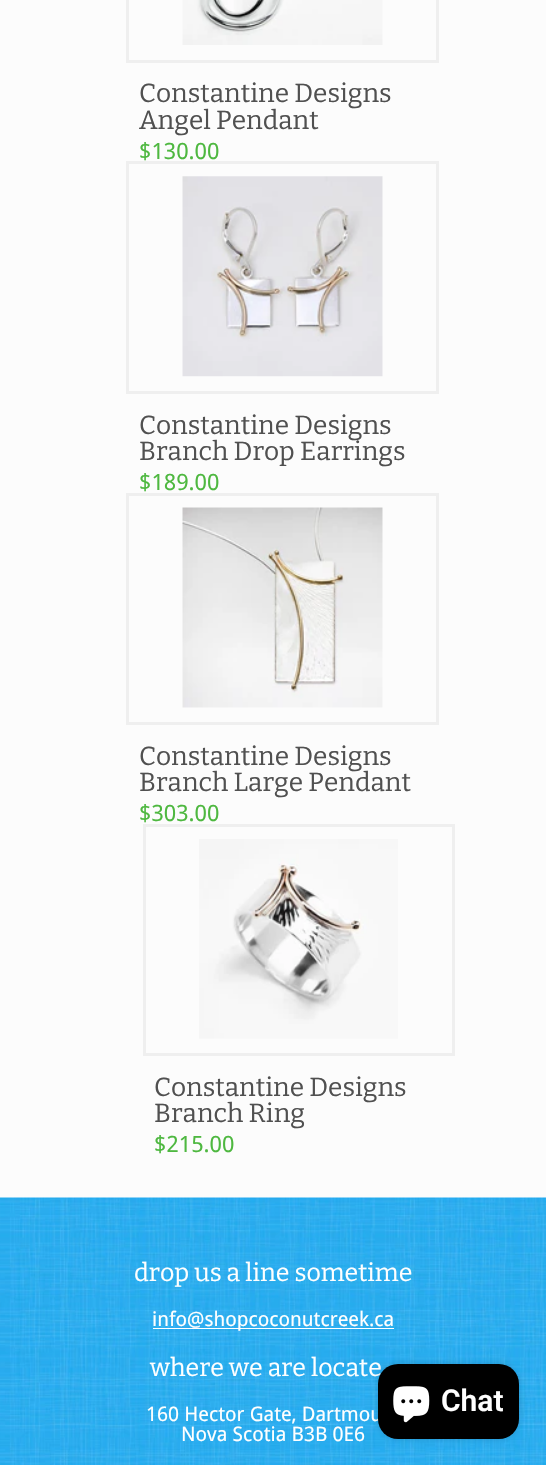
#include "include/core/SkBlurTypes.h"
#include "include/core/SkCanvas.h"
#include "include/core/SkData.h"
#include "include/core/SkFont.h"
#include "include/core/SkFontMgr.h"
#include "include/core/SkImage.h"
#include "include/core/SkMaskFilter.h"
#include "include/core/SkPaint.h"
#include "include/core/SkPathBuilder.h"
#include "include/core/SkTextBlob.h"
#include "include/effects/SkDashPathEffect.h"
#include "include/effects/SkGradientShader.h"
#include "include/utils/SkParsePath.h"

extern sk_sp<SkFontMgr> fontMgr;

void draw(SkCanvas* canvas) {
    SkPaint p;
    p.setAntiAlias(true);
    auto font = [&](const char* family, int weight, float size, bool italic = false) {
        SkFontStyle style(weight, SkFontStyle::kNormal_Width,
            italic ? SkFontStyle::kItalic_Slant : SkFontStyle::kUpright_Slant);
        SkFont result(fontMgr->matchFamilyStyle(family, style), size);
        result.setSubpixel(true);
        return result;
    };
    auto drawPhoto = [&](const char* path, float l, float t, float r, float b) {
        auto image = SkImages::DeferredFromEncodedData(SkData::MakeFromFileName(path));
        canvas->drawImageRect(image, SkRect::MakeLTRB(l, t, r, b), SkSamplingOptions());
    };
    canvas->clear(0xFFFCFCFC);
    p.setStyle(SkPaint::kStroke_Style);
    p.setStrokeWidth(3);
    p.setColor(0xFFEFEFEF);
    canvas->drawRect(SkRect::MakeLTRB(127.5f, -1.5f, 437.5f, 61.5f), p);
    drawPhoto("media/1.png", 182, 0, 383, 45);
    auto font1 = font("Bitter", 100, 26.25f);
    p.setStyle(SkPaint::kFill_Style);
    p.setColor(0xFF505050);
    canvas->drawString("Constantine Designs", 139, 102, font1, p);
    canvas->drawString("Angel Pendant", 139, 129, font1, p);
    auto font2 = font("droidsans", 400, 22.5f);
    p.setColor(0xFF4EB840);
    canvas->drawString("$130.00", 139, 159, font2, p);
    p.setStyle(SkPaint::kStroke_Style);
    p.setColor(0xFFEFEFEF);
    canvas->drawRect(SkRect::MakeLTRB(127.5f, 162.5f, 437.5f, 392.5f), p);
    drawPhoto("media/2.png", 182, 176, 383, 377);
    p.setStyle(SkPaint::kFill_Style);
    p.setColor(0xFF505050);
    canvas->drawString("Constantine Designs", 139, 434, font1, p);
    canvas->drawString("Branch Drop Earrings", 139, 460, font1, p);
    p.setColor(0xFF4EB840);
    canvas->drawString("$189.00", 139, 490, font2, p);
    p.setStyle(SkPaint::kStroke_Style);
    p.setColor(0xFFEFEFEF);
    canvas->drawRect(SkRect::MakeLTRB(127.5f, 494.5f, 437.5f, 723.5f), p);
    drawPhoto("media/3.png", 182, 507, 383, 708);
    p.setStyle(SkPaint::kFill_Style);
    p.setColor(0xFF505050);
    canvas->drawString("Constantine Designs", 139, 765, font1, p);
    canvas->drawString("Branch Large Pendant", 139, 791, font1, p);
    p.setColor(0xFF4EB840);
    canvas->drawString("$303.00", 139, 821, font2, p);
    p.setStyle(SkPaint::kStroke_Style);
    p.setColor(0xFFEFEFEF);
    canvas->drawRect(SkRect::MakeLTRB(144.5f, 825.5f, 453.5f, 1054.5f), p);
    drawPhoto("media/4.png", 199, 839, 398, 1039);
    p.setStyle(SkPaint::kFill_Style);
    p.setColor(0xFF505050);
    canvas->drawString("Constantine Designs", 154, 1096, font1, p);
    canvas->drawString("Branch Ring", 154, 1122, font1, p);
    p.setColor(0xFF4EB840);
    canvas->drawString("$215.00", 154, 1152, font2, p);
    drawPhoto("media/5.png", 0, 1197, 546, 1465);
    auto font3 = font("Bitter", 100, 25);
    p.setColor(0xFFFFFFFF);
    canvas->drawString("drop us a line sometime", 134, 1281, font3, p);
    canvas->drawRect(SkRect::MakeLTRB(153, 1328, 394, 1329), p);
    auto font4 = font("droidsans", 400, 20);
    canvas->drawString("info@shopcoconutcreek.ca", 152, 1326, font4, p);
    canvas->drawString("where we are locate", 150, 1376, font3, p);
    canvas->drawString("160 Hector Gate, Dartmou", 146, 1421, font4, p);
    canvas->drawString("Nova Scotia B3B 0E6", 181, 1441, font4, p);
    p.setColor(0x26000000);
    p.setMaskFilter(SkMaskFilter::MakeBlur(kNormal_SkBlurStyle, 3));
    canvas->drawRoundRect(SkRect::MakeLTRB(378, 1364, 519, 1439), 20, 20, p);
    p.setMaskFilter(nullptr);
    p.setColor(0xFF000000);
    canvas->drawRoundRect(SkRect::MakeLTRB(378, 1364, 519, 1439), 20, 20, p);
    drawPhoto("media/6.png", 393, 1386, 430, 1423);
    auto font5 = font("Roboto", 600, 30);
    p.setColor(0xFFFFFFFF);
    canvas->drawString("Chat", 441, 1411, font5, p);
}
